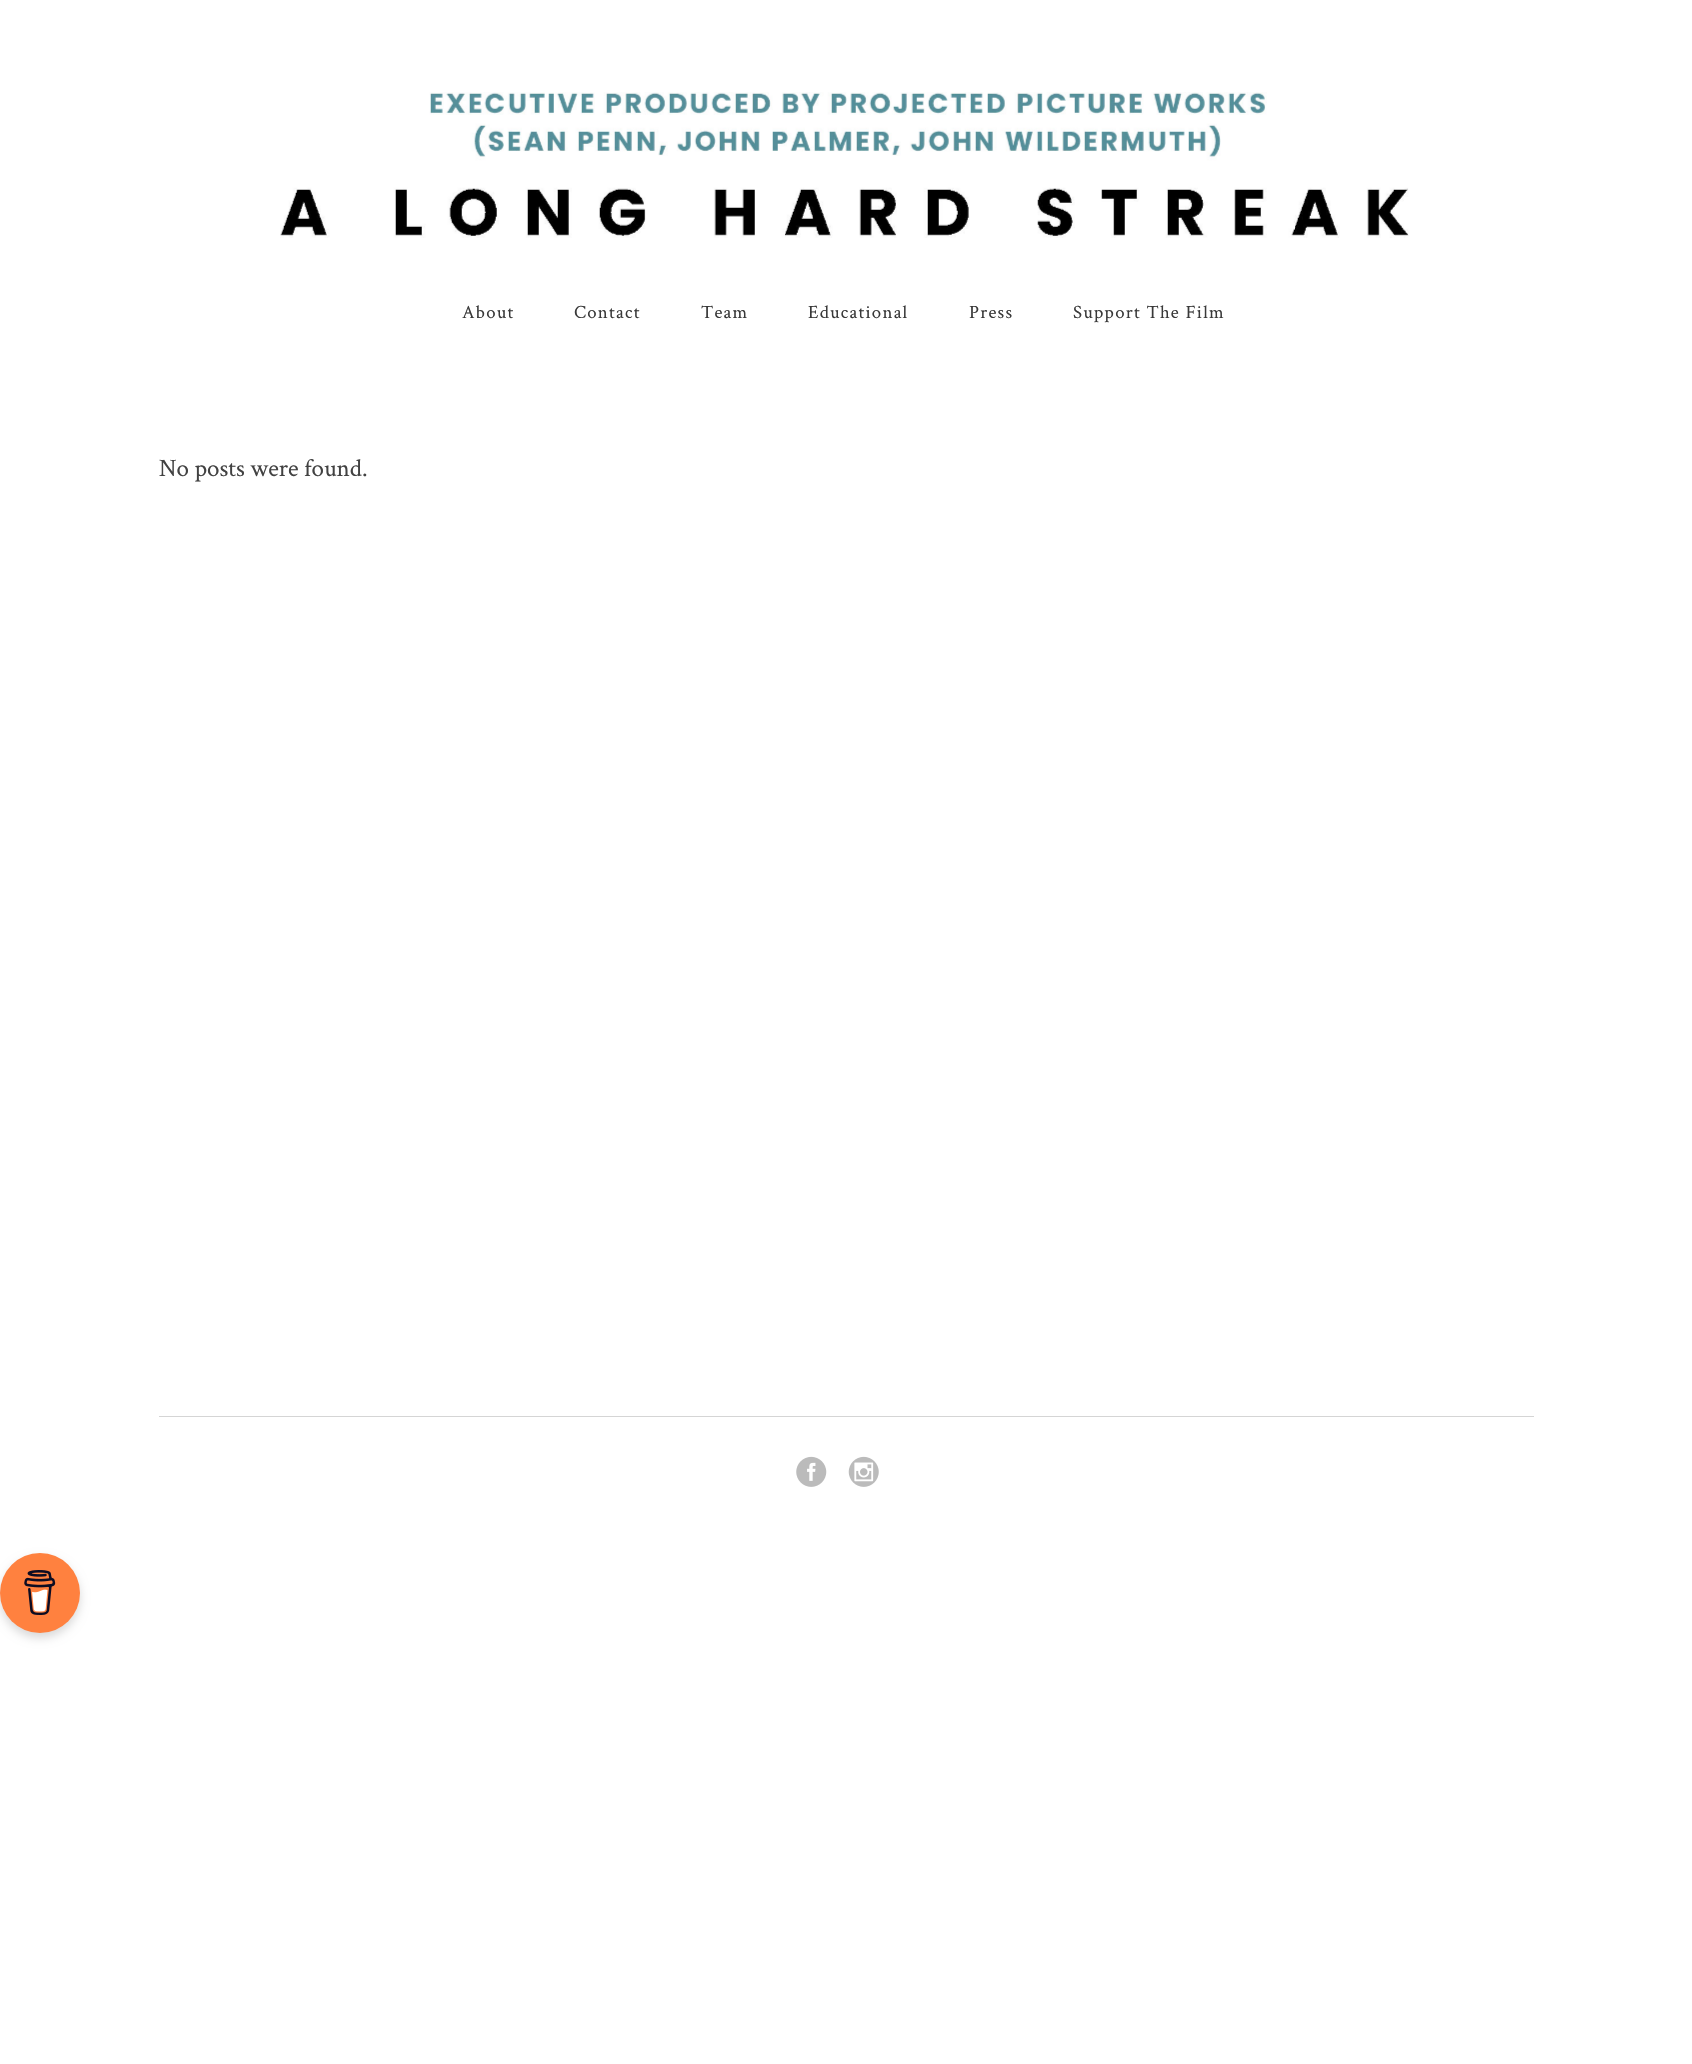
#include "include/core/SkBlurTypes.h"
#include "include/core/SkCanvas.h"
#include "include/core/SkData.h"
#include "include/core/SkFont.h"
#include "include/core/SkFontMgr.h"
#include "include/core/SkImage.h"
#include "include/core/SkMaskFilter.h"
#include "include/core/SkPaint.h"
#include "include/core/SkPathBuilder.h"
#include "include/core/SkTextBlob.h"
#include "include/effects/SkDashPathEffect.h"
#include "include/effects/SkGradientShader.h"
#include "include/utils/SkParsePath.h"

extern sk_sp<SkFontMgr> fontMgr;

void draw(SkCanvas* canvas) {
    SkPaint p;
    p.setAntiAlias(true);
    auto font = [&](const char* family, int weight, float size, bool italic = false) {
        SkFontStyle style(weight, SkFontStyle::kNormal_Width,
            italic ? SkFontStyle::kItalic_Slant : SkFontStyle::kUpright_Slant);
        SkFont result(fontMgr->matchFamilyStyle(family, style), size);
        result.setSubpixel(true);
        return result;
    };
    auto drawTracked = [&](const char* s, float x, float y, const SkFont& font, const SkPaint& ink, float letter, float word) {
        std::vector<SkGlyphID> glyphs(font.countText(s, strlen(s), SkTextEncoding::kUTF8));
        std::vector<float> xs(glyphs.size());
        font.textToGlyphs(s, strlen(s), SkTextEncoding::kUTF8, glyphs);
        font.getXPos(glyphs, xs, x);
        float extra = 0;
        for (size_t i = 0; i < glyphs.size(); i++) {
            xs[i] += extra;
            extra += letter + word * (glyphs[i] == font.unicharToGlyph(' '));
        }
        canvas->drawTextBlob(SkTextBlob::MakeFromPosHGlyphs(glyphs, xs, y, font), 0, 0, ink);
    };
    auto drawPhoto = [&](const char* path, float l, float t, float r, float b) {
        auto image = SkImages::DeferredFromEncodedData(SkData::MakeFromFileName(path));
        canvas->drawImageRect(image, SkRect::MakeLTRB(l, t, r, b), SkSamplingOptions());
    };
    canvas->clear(0xFFFFFFFF);
    drawPhoto("media/1.png", 280, 92, 1409, 238);
    auto font1 = font("Crimson Text", 400, 18.75f);
    p.setColor(0xFF393939);
    {
        const struct { const char* s; float x, y; } items[] = {
            {"About", 462, 318},
            {"Contact", 574, 318},
            {"Team", 701, 318},
            {"Educational", 808, 318},
            {"Press", 969, 318},
            {"Support The Film", 1073, 318},
        };
        for (auto [s, x, y] : items) {
            drawTracked(s, x, y, font1, p, 1.25f, 0);
        }
    }
    auto font2 = font("Crimson Text", 400, 25);
    p.setColor(0xFF424242);
    canvas->drawString("No posts were found.", 159, 476, font2, p);
    p.setColor(0xFFD5D5D5);
    canvas->drawRect(SkRect::MakeLTRB(159, 1416, 1534, 1417), p);
    drawPhoto("media/2.png", 796, 1456, 827, 1487);
    drawPhoto("media/3.png", 848, 1456, 879, 1487);
    p.setColor(0x26000000);
    p.setMaskFilter(SkMaskFilter::MakeBlur(kNormal_SkBlurStyle, 5));
    canvas->drawRoundRect(SkRect::MakeLTRB(0, 1558, 80, 1638), 40, 40, p);
    p.setMaskFilter(nullptr);
    p.setColor(0xFFFF813F);
    canvas->drawCircle(40, 1593, 40, p);
    drawPhoto("media/4.png", 24, 1570, 56, 1615);
}
